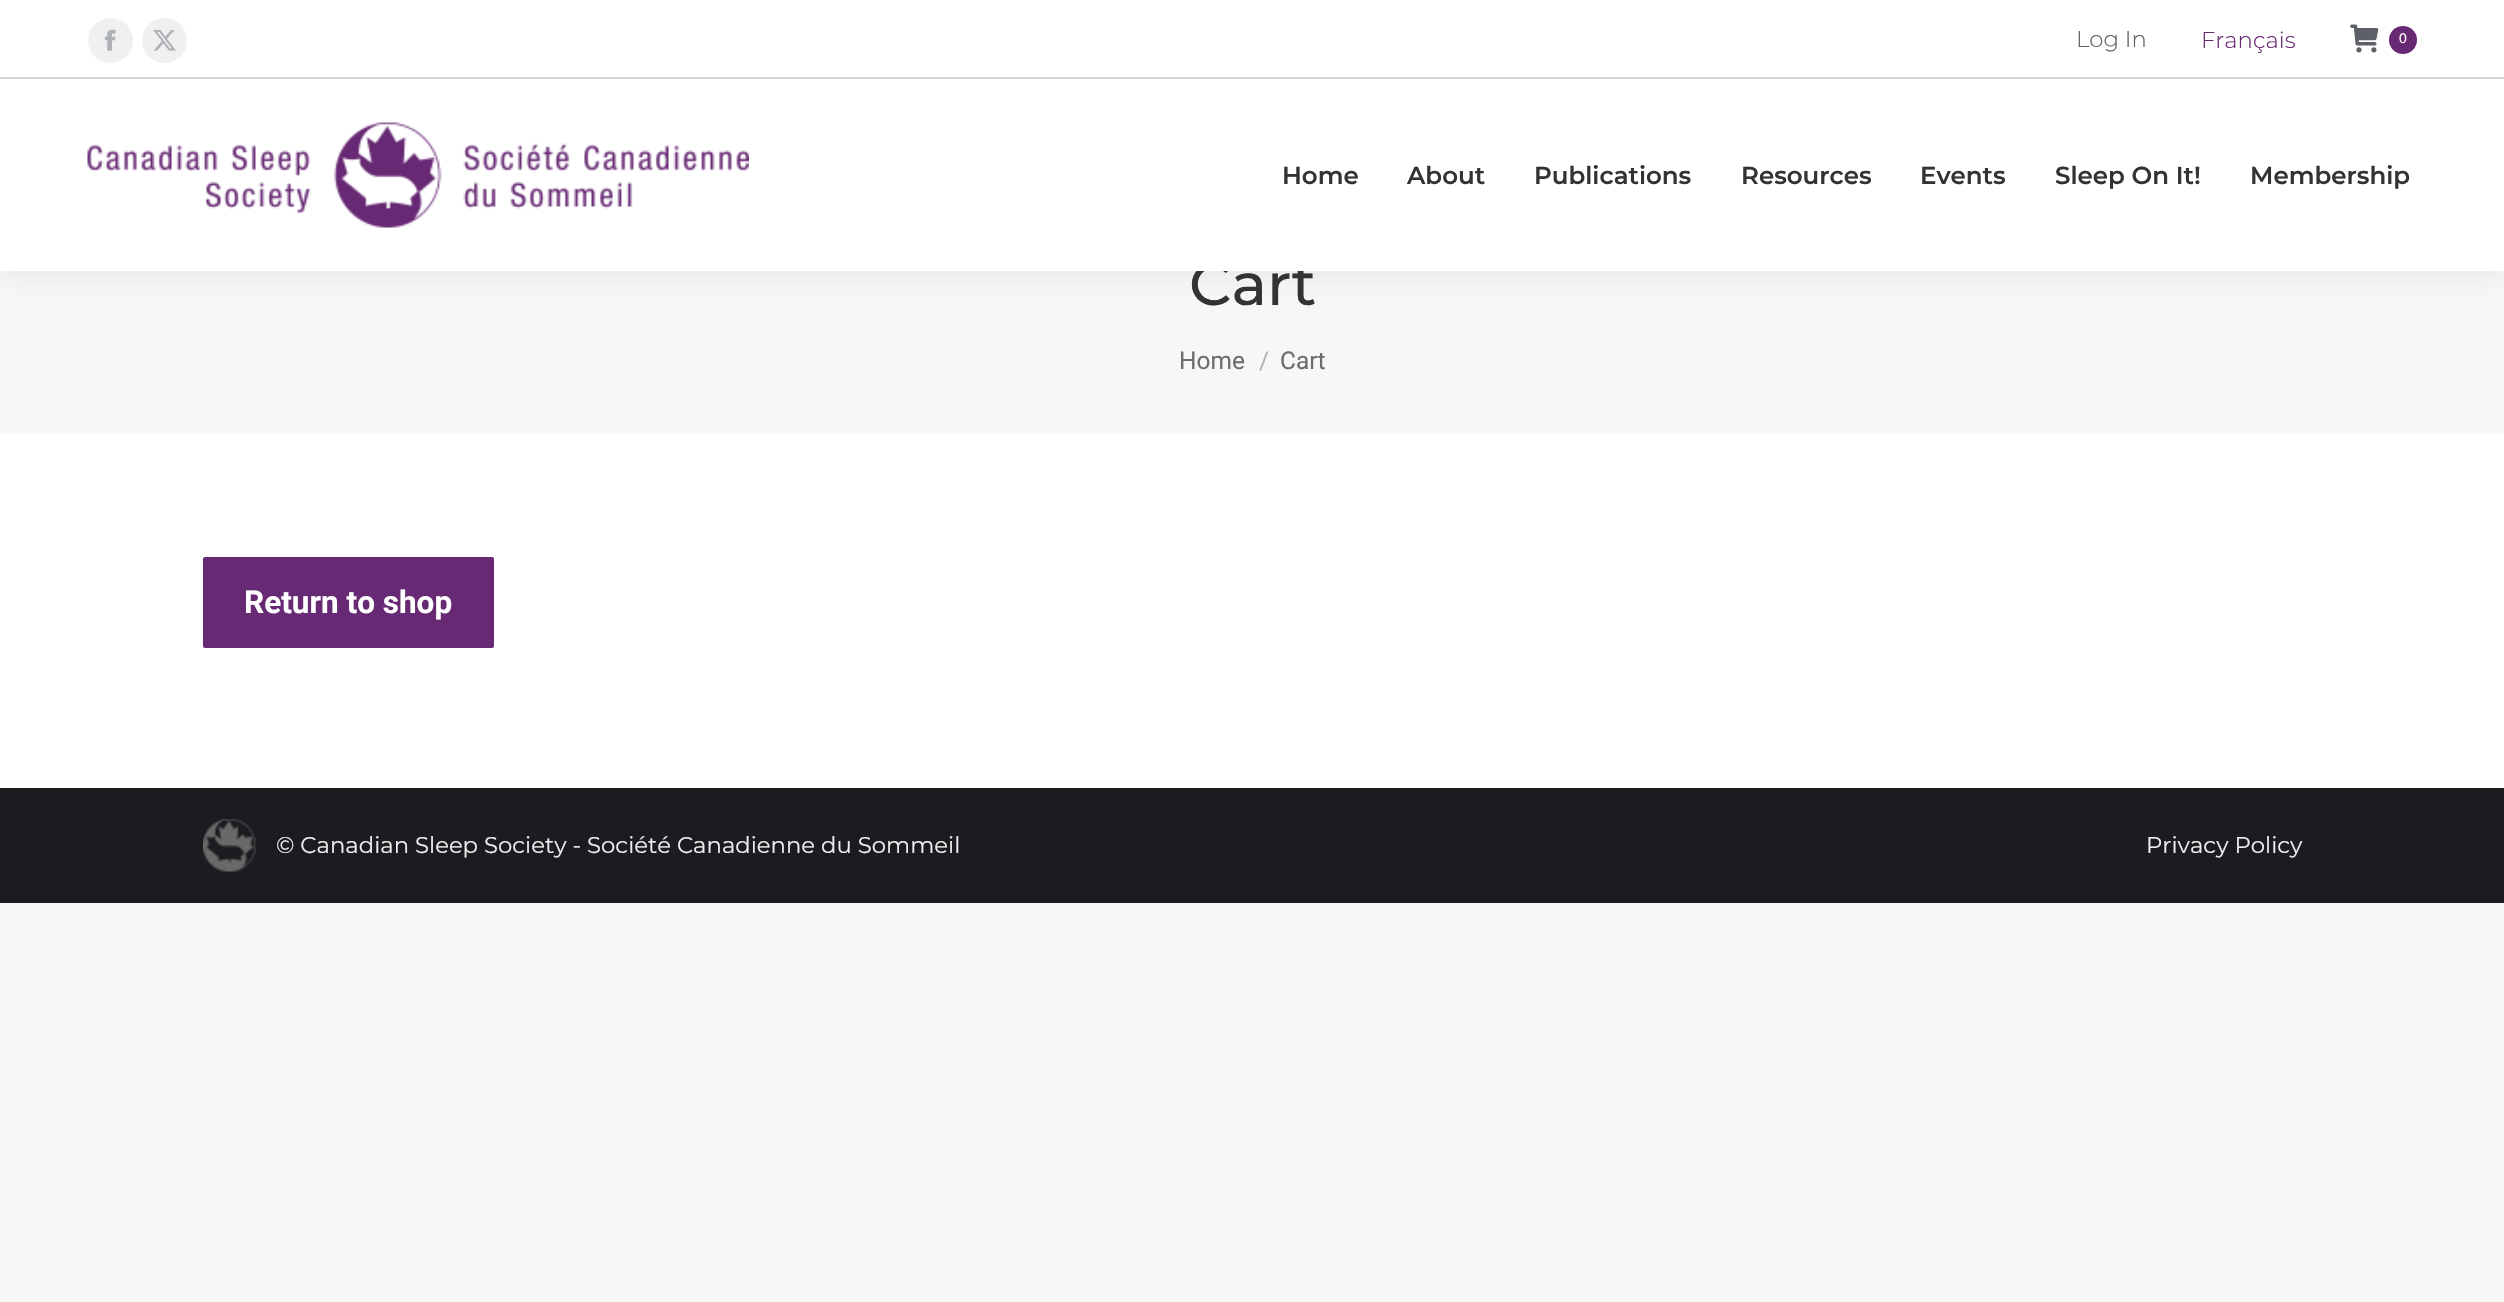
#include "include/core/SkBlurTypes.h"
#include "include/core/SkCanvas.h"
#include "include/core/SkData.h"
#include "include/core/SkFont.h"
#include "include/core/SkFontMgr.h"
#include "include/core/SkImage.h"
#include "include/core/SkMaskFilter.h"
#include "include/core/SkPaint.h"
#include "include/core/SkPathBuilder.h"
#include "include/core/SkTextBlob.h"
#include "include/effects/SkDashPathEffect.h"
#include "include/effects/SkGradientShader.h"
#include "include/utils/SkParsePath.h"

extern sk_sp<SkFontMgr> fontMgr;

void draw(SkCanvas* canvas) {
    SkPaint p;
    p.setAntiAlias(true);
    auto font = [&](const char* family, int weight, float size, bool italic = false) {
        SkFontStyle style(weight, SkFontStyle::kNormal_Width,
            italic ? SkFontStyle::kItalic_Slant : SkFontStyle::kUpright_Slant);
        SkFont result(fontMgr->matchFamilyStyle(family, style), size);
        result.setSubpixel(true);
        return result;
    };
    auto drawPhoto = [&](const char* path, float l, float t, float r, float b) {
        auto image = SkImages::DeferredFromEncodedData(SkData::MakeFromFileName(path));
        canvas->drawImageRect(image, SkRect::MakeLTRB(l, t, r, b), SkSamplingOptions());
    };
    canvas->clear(0xFFF7F7F7);
    p.setColor(0xFFFFFFFF);
    canvas->drawRect(SkRect::MakeLTRB(0, 434, 2504, 788), p);
    p.setColor(0x12000000);
    p.setMaskFilter(SkMaskFilter::MakeBlur(kNormal_SkBlurStyle, 13));
    canvas->drawRect(SkRect::MakeLTRB(-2, -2, 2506, 273), p);
    p.setMaskFilter(nullptr);
    auto font1 = font("Montserrat", 500, 59.5f);
    p.setColor(0xFF333333);
    canvas->drawString("Cart", 1189, 305, font1, p);
    p.setColor(0xFFFFFFFF);
    canvas->drawRect(SkRect::MakeLTRB(0, 0, 2504, 271), p);
    p.setColor(0xFFF0F0F0);
    canvas->drawCircle(110.5f, 40.5f, 22.5f, p);
    drawPhoto("media/1.png", 105, 29, 116, 51);
    canvas->drawCircle(164.5f, 40.5f, 22.5f, p);
    drawPhoto("media/2.png", 153, 30, 176, 51);
    auto font2 = font("Montserrat", 300, 22.75f);
    p.setColor(0xFF5E6068);
    canvas->drawString("Log In", 2076, 47, font2, p);
    p.setColor(0xFF672973);
    canvas->drawString("Français", 2201, 48, font2, p);
    drawPhoto("media/3.png", 2350, 24, 2379, 53);
    canvas->drawCircle(2403, 40, 14, p);
    auto font3 = font("Liberation Sans", 400, 14);
    p.setColor(0xFFFFFFFF);
    canvas->drawString("0", 2399, 43, font3, p);
    p.setColor(0xFFD5D5D5);
    canvas->drawRect(SkRect::MakeLTRB(0, 77, 2504, 79), p);
    drawPhoto("media/4.png", 87, 122, 749, 228);
    auto font4 = font("Montserrat", 600, 24.5f);
    p.setColor(0xFF333333);
    {
        const struct { const char* s; float x, y; } items[] = {
            {"Home", 1282, 184},
            {"About", 1407, 184},
            {"Publications", 1534, 184},
            {"Resources", 1741, 184},
            {"Events", 1920, 184},
            {"Sleep On It!", 2055, 184},
            {"Membership", 2250, 184},
        };
        for (auto [s, x, y] : items) {
            canvas->drawString(s, x, y, font4, p);
        }
    }
    auto font5 = font("Roboto", 400, 24.5f);
    p.setColor(0xFF6C6D70);
    canvas->drawString("Home", 1179, 369, font5, p);
    p.setColor(0xFFB1B2B3);
    canvas->drawString("/", 1259, 369, font5, p);
    p.setColor(0xFF6C6D70);
    canvas->drawString("Cart", 1280, 369, font5, p);
    p.setColor(0xFF672973);
    canvas->drawRoundRect(SkRect::MakeLTRB(203, 557, 494, 648), 2, 2, p);
    auto font6 = font("Roboto", 700, 31.5f);
    p.setColor(0xFFFFFFFF);
    canvas->drawString("Return to shop", 244, 613, font6, p);
    p.setColor(0xFF1A1C20);
    canvas->drawRect(SkRect::MakeLTRB(0, 788, 2504, 903), p);
    drawPhoto("media/5.png", 203, 819, 256, 872);
    auto font7 = font("Montserrat", 400, 22.75f);
    p.setColor(0xFFEEEEEE);
    canvas->drawString("© Canadian Sleep Society - Société Canadienne du Sommeil", 276, 853, font7, p);
    canvas->drawString("Privacy Policy", 2146, 853, font7, p);
}
